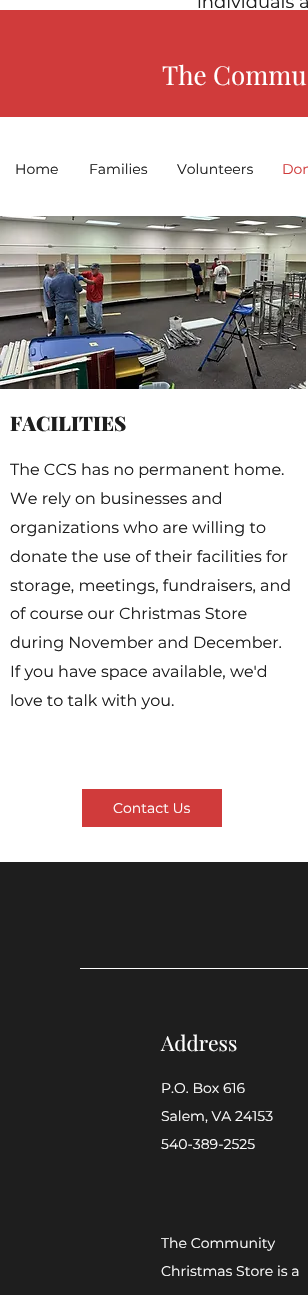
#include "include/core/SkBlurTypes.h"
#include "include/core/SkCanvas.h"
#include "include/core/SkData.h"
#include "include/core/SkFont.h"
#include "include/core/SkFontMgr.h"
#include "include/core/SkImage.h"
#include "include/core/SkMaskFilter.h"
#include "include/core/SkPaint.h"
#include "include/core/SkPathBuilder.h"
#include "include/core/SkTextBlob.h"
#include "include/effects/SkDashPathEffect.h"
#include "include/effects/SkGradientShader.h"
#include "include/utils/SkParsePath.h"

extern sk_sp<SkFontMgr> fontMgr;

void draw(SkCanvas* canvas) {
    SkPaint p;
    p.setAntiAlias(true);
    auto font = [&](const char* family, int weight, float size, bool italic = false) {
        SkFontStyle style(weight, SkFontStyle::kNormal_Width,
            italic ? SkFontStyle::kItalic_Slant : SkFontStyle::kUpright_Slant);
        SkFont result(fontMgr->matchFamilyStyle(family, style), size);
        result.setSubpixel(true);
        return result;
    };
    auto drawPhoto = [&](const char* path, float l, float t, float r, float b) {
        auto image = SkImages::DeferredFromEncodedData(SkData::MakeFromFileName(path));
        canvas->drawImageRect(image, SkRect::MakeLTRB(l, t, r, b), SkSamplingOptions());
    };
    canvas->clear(0xFFFFFFFF);
    auto font1 = font("Montserrat", 400, 18);
    p.setColor(0xFF1E1E1E);
    canvas->drawString("individuals a", 197, 8, font1, p);
    drawPhoto("media/1.png", 0, 216, 306, 389);
    auto font2 = font("Playfair Display", 900, 20);
    canvas->drawString("FACILITIES", 10, 431, font2, p);
    auto font3 = font("Montserrat", 400, 16);
    {
        const struct { const char* s; float x, y; } items[] = {
            {"The CCS has no permanent home.", 10, 475},
            {"We rely on businesses and", 10, 504},
            {"organizations who are willing to", 10, 533},
            {"donate the use of their facilities for", 10, 562},
            {"storage, meetings, fundraisers, and", 10, 591},
            {"of course our Christmas Store", 10, 619},
            {"during November and December.", 10, 648},
            {"If you have space available, we'd", 10, 677},
            {"love to talk with you.", 10, 706},
        };
        for (auto [s, x, y] : items) {
            canvas->drawString(s, x, y, font3, p);
        }
    }
    p.setColor(0xFFD03B3B);
    canvas->drawRect(SkRect::MakeLTRB(82, 789, 222, 827), p);
    auto font4 = font("Montserrat", 400, 14);
    p.setColor(0xFFFFFFFF);
    canvas->drawString("Contact Us", 113, 813, font4, p);
    p.setColor(0xFFD03B3B);
    canvas->drawRect(SkRect::MakeLTRB(0, 10, 308, 117), p);
    auto font5 = font("Playfair Display", 400, 26);
    p.setColor(0xFFFFFFFF);
    canvas->drawString("The Commu", 162, 85, font5, p);
    p.setColor(0xFF1E1E1E);
    {
        const struct { const char* s; float x, y; } items[] = {
            {"Home", 15, 174},
            {"Families", 89, 174},
            {"Volunteers", 177, 174},
        };
        for (auto [s, x, y] : items) {
            canvas->drawString(s, x, y, font4, p);
        }
    }
    p.setColor(0xFFD03B3B);
    canvas->drawString("Don", 282, 174, font4, p);
    p.setColor(0xFF1E1E1E);
    canvas->drawRect(SkRect::MakeLTRB(0, 862, 308, 1295), p);
    p.setColor(0xFFFFFFFF);
    canvas->drawRect(SkRect::MakeLTRB(80, 968, 308, 969), p);
    auto font6 = font("Playfair Display", 400, 21);
    canvas->drawString("Address", 161, 1051, font6, p);
    {
        const struct { const char* s; float x, y; } items[] = {
            {"P.O. Box 616", 161, 1093},
            {"Salem, VA 24153", 161, 1121},
            {"540-389-2525", 161, 1149},
            {"The Community", 161, 1248},
            {"Christmas Store is a", 161, 1276},
        };
        for (auto [s, x, y] : items) {
            canvas->drawString(s, x, y, font4, p);
        }
    }
}
